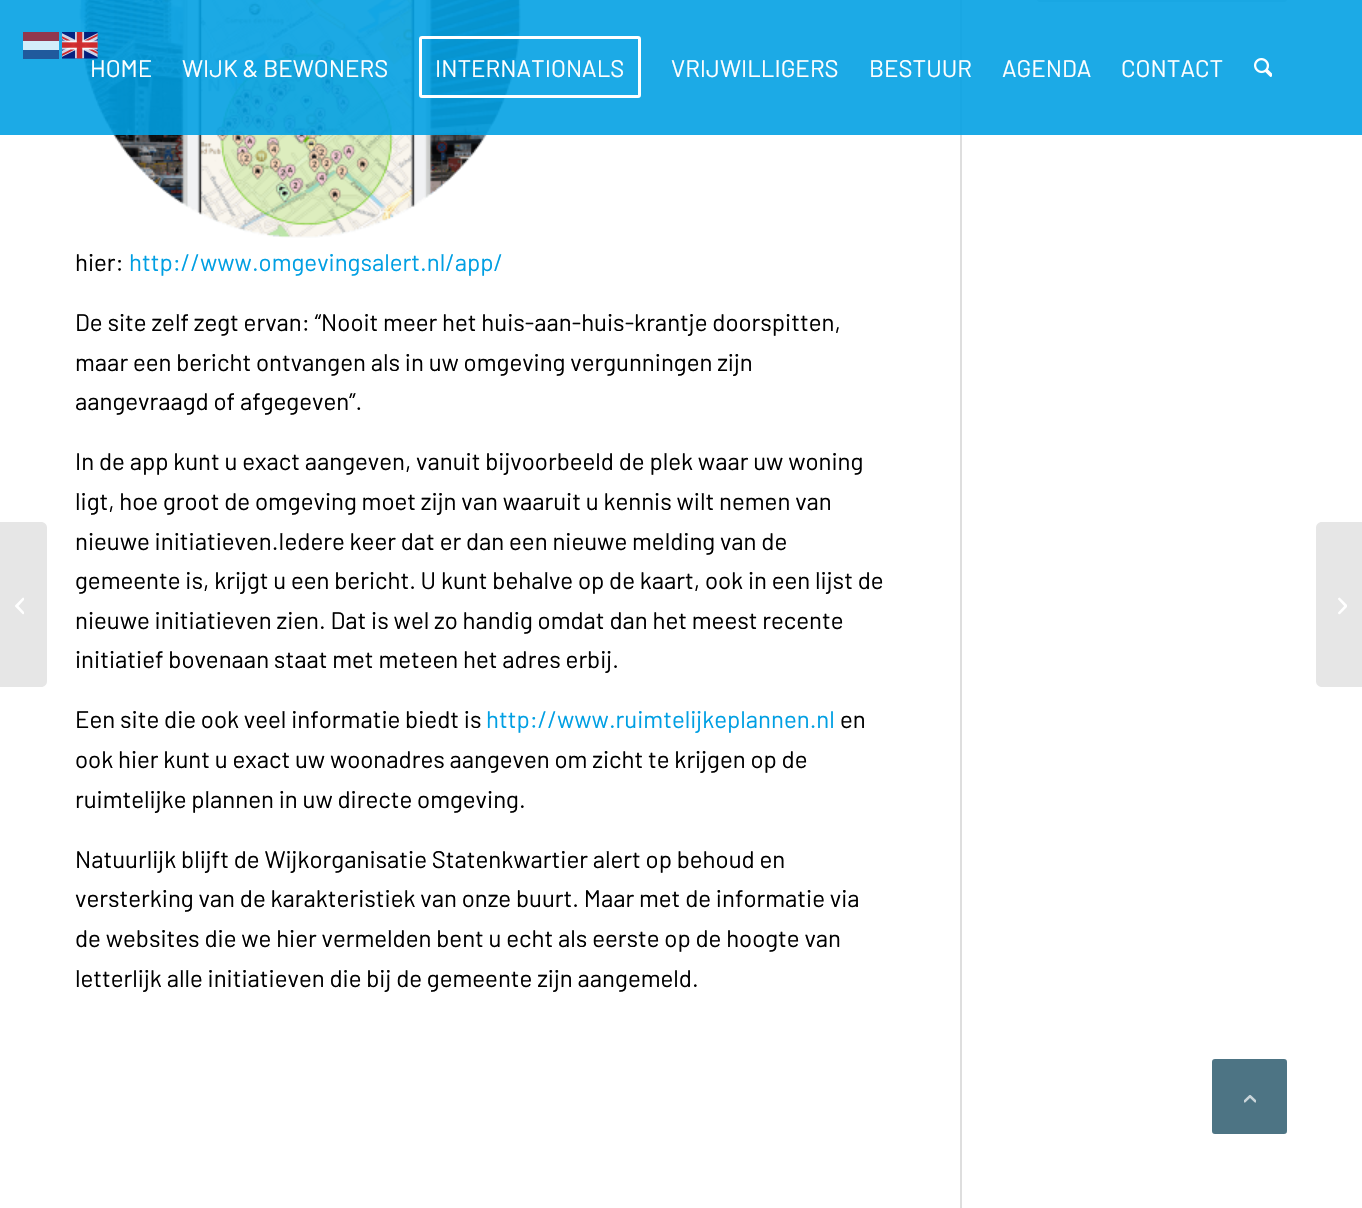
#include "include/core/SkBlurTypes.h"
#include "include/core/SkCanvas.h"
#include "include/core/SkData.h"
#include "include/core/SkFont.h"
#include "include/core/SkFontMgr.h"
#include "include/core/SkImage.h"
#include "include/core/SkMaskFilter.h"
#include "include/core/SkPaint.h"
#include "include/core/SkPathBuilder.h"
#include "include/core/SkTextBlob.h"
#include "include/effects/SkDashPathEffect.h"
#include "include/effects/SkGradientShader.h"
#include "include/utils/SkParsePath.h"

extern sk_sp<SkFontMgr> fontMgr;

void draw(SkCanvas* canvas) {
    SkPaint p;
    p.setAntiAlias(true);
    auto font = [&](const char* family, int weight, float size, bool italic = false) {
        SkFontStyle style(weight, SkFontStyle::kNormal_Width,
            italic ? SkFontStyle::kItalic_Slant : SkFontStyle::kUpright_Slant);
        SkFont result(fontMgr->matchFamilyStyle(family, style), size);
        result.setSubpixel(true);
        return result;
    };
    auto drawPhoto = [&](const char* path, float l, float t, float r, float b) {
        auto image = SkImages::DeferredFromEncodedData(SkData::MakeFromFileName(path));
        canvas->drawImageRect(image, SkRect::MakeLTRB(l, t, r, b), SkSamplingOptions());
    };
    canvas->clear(0xFFFFFFFF);
    p.setStyle(SkPaint::kStroke_Style);
    p.setStrokeWidth(2);
    p.setColor(0xFFDEDEDE);
    canvas->drawRoundRect(SkRect::MakeLTRB(1038, -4, 1286, 1), 2, 2, p);
    p.setStyle(SkPaint::kFill_Style);
    canvas->drawRect(SkRect::MakeLTRB(960, 0, 962, 1208), p);
    drawPhoto("media/4.png", 79, 0, 521, 238);
    p.setColor(0xE3009FE3);
    canvas->drawRect(SkRect::MakeLTRB(0, 0, 1362, 135), p);
    p.setColor(0xFF91384E);
    canvas->drawRect(SkRect::MakeLTRB(23, 32, 59, 41), p);
    drawPhoto("media/1.png", 62, 32, 98, 59);
    p.setColor(0xFFD2EEFA);
    canvas->drawRect(SkRect::MakeLTRB(23, 41, 59, 50), p);
    p.setColor(0xFF205A9D);
    canvas->drawRect(SkRect::MakeLTRB(23, 50, 59, 59), p);
    auto font1 = font("Barlow", 400, 24);
    p.setColor(0xFFFFFFFF);
    canvas->drawString("HOME", 90, 77, font1, p);
    canvas->drawString("WIJK & BEWONERS", 182, 77, font1, p);
    p.setStyle(SkPaint::kStroke_Style);
    p.setStrokeWidth(3);
    canvas->drawRoundRect(SkRect::MakeLTRB(420.5f, 37.5f, 639.5f, 96.5f), 1.5f, 1.5f, p);
    p.setStyle(SkPaint::kFill_Style);
    {
        const struct { const char* s; float x, y; } items[] = {
            {"INTERNATIONALS", 435, 77},
            {"VRIJWILLIGERS", 671, 77},
            {"BESTUUR", 869, 77},
            {"AGENDA", 1002, 77},
            {"CONTACT", 1121, 77},
        };
        for (auto [s, x, y] : items) {
            canvas->drawString(s, x, y, font1, p);
        }
    }
    drawPhoto("media/2.png", 1254, 58, 1272, 77);
    p.setColor(0xFFE6E6E6);
    canvas->drawPath(SkPathBuilder().moveTo(0, 522).lineTo(41, 522).cubicTo(44.5f, 522, 47, 524.5f, 47, 528).lineTo(47, 681).cubicTo(47, 684.5f, 44.5f, 687, 41, 687).lineTo(0, 687).close().detach(), p);
    drawPhoto("media/3.png", 15, 597, 24, 615);
    p.setColor(0xFF000000);
    canvas->drawString("hier:", 75, 271, font1, p);
    p.setColor(0xFF009FE3);
    canvas->drawString("http://www.omgevingsalert.nl/app/", 129, 271, font1, p);
    p.setColor(0xFF000000);
    {
        const struct { const char* s; float x, y; } items[] = {
            {"De site zelf zegt ervan: “Nooit meer het huis-aan-huis-krantje doorspitten,", 75, 331},
            {"maar een bericht ontvangen als in uw omgeving vergunningen zijn", 75, 371},
            {"aangevraagd of afgegeven”.", 75, 410},
            {"In de app kunt u exact aangeven, vanuit bijvoorbeeld de plek waar uw woning", 75, 470},
            {"ligt, hoe groot de omgeving moet zijn van waaruit u kennis wilt nemen van", 75, 510},
            {"nieuwe initiatieven.Iedere keer dat er dan een nieuwe melding van de", 75, 550},
            {"gemeente is, krijgt u een bericht. U kunt behalve op de kaart, ook in een lijst de", 75, 589},
            {"nieuwe initiatieven zien. Dat is wel zo handig omdat dan het meest recente", 75, 629},
            {"initiatief bovenaan staat met meteen het adres erbij.", 75, 668},
            {"Een site die ook veel informatie biedt is", 75, 728},
        };
        for (auto [s, x, y] : items) {
            canvas->drawString(s, x, y, font1, p);
        }
    }
    p.setColor(0xFF009FE3);
    canvas->drawString("http://www.ruimtelijkeplannen.nl", 486, 728, font1, p);
    p.setColor(0xFF000000);
    {
        const struct { const char* s; float x, y; } items[] = {
            {"en", 840, 728},
            {"ook hier kunt u exact uw woonadres aangeven om zicht te krijgen op de", 75, 768},
            {"ruimtelijke plannen in uw directe omgeving.", 75, 808},
            {"Natuurlijk blijft de Wijkorganisatie Statenkwartier alert op behoud en", 75, 868},
            {"versterking van de karakteristiek van onze buurt. Maar met de informatie via", 75, 907},
            {"de websites die we hier vermelden bent u echt als eerste op de hoogte van", 75, 947},
            {"letterlijk alle initiatieven die bij de gemeente zijn aangemeld.", 75, 987},
        };
        for (auto [s, x, y] : items) {
            canvas->drawString(s, x, y, font1, p);
        }
    }
    p.setColor(0xFFE6E6E6);
    canvas->drawPath(SkPathBuilder().moveTo(1322, 522).lineTo(1362, 522).lineTo(1362, 687).lineTo(1322, 687).cubicTo(1318.5f, 687, 1316, 684.5f, 1316, 681).lineTo(1316, 528).cubicTo(1316, 524.5f, 1318.5f, 522, 1322, 522).close().detach(), p);
    drawPhoto("media/5.png", 1338, 597, 1347, 615);
    p.setColor(0xFF4D7484);
    canvas->drawRoundRect(SkRect::MakeLTRB(1213, 1060, 1286, 1133), 2, 2, p);
    p.setStyle(SkPaint::kStroke_Style);
    p.setStrokeWidth(2);
    canvas->drawRoundRect(SkRect::MakeLTRB(1213, 1060, 1286, 1133), 2, 2, p);
    drawPhoto("media/6.png", 1244, 1095, 1256, 1103);
}
